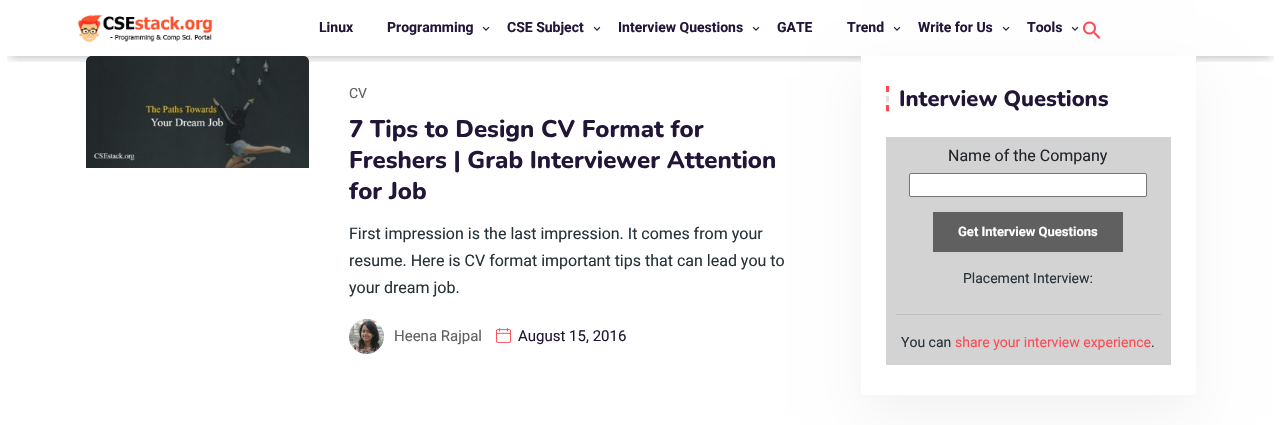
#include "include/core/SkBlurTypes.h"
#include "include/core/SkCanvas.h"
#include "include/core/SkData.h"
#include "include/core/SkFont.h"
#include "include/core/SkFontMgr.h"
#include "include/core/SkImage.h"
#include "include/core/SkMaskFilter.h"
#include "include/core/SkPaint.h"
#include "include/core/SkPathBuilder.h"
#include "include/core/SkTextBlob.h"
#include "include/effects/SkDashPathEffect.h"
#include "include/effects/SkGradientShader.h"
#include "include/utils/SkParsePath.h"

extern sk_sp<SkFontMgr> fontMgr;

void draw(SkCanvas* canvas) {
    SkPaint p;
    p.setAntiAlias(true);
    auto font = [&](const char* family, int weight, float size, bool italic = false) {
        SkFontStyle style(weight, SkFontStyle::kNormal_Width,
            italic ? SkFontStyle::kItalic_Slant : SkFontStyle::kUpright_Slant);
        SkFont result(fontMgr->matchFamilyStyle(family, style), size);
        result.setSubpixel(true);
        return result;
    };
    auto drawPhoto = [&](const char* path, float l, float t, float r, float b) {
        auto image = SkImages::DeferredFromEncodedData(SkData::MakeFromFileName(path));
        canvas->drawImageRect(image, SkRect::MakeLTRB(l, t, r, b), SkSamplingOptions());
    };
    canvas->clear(0xFFFFFFFF);
    canvas->save();
    canvas->clipRect(SkRect::MakeLTRB(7, 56, 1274, 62));
    p.setColor(0x2B000000);
    p.setMaskFilter(SkMaskFilter::MakeBlur(kNormal_SkBlurStyle, 5));
    canvas->drawRect(SkRect::MakeLTRB(10, 21, 1271, 56), p);
    p.setMaskFilter(nullptr);
    p.setMaskFilter(SkMaskFilter::MakeBlur(kNormal_SkBlurStyle, 5));
    canvas->drawRect(SkRect::MakeLTRB(10, 21, 1271, 56), p);
    p.setMaskFilter(nullptr);
    canvas->restore();
    drawPhoto("media/1.png", 77, 14, 213, 43);
    auto font1 = font("Roboto", 700, 14);
    p.setColor(0xFF221638);
    canvas->drawString("Linux", 319, 32, font1, p);
    canvas->drawString("Programming", 387, 32, font1, p);
    drawPhoto("media/2.png", 482, 26, 490, 31);
    canvas->drawString("CSE Subject", 507, 32, font1, p);
    drawPhoto("media/2.png", 593, 26, 601, 31);
    canvas->drawString("Interview Questions", 618, 32, font1, p);
    drawPhoto("media/2.png", 752, 26, 760, 31);
    canvas->drawString("GATE", 777, 32, font1, p);
    canvas->drawString("Trend", 847, 32, font1, p);
    drawPhoto("media/2.png", 893, 26, 901, 31);
    canvas->drawString("Write for Us", 918, 32, font1, p);
    drawPhoto("media/2.png", 1002, 26, 1010, 31);
    canvas->drawString("Tools", 1027, 32, font1, p);
    drawPhoto("media/2.png", 1071, 26, 1079, 31);
    drawPhoto("media/3.png", 1083, 21, 1101, 39);
    drawPhoto("media/4.png", 86, 56, 309, 168);
    auto font2 = font("Roboto", 400, 14);
    p.setColor(0xFF606060);
    canvas->drawString("CV", 349, 98, font2, p);
    auto font3 = font("Nunito", 800, 24);
    p.setColor(0xFF221638);
    {
        const struct { const char* s; float x, y; } items[] = {
            {"7 Tips to Design CV Format for", 349, 137},
            {"Freshers | Grab Interviewer Attention", 349, 168},
            {"for Job", 349, 199},
        };
        for (auto [s, x, y] : items) {
            canvas->drawString(s, x, y, font3, p);
        }
    }
    auto font4 = font("Roboto", 400, 16);
    p.setColor(0xFF273239);
    {
        const struct { const char* s; float x, y; } items[] = {
            {"First impression is the last impression. It comes from your", 349, 239},
            {"resume. Here is CV format important tips that can lead you to", 349, 266},
            {"your dream job.", 349, 293},
        };
        for (auto [s, x, y] : items) {
            canvas->drawString(s, x, y, font4, p);
        }
    }
    drawPhoto("media/5.png", 349, 319, 384, 354);
    auto font5 = font("Roboto", 400, 15);
    p.setColor(0xFF606060);
    canvas->drawString("Heena Rajpal", 394, 341, font5, p);
    drawPhoto("media/6.png", 496, 327, 511, 343);
    p.setColor(0xFF221638);
    canvas->drawString("August 15, 2016", 518, 341, font5, p);
    p.setColor(0x0D000000);
    p.setMaskFilter(SkMaskFilter::MakeBlur(kNormal_SkBlurStyle, 25));
    canvas->drawRect(SkRect::MakeLTRB(861, 76, 1196, 415), p);
    p.setMaskFilter(nullptr);
    p.setColor(0xFFFFFFFF);
    canvas->drawRect(SkRect::MakeLTRB(861, 56, 1196, 395), p);
    p.setStyle(SkPaint::kStroke_Style);
    p.setStrokeWidth(3);
    p.setColor(0xFFDFDFDF);
    canvas->drawPath(SkPathBuilder().moveTo(887.5f, 86).lineTo(887.5f, 92).moveTo(887.5f, 96).lineTo(887.5f, 102).moveTo(887.5f, 106).lineTo(887.5f, 112).detach(), p);
    p.setStyle(SkPaint::kFill_Style);
    p.setColor(0xFFFE4A55);
    canvas->drawRect(SkRect::MakeLTRB(886, 86, 889, 92), p);
    auto font6 = font("Nunito", 800, 22);
    p.setColor(0xFF221638);
    canvas->drawString("Interview Questions", 899, 106, font6, p);
    p.setColor(0xFFFE4A55);
    canvas->drawRect(SkRect::MakeLTRB(886, 105, 889, 111), p);
    p.setColor(0xFFD3D3D3);
    canvas->drawRect(SkRect::MakeLTRB(886, 137, 1171, 365), p);
    p.setColor(0xFF212529);
    canvas->drawString("Name of the Company", 948, 161, font4, p);
    p.setColor(0xFFFFFFFF);
    canvas->drawRoundRect(SkRect::MakeLTRB(909.5f, 173.5f, 1146.5f, 196.5f), 1.5f, 1.5f, p);
    p.setStyle(SkPaint::kStroke_Style);
    p.setStrokeWidth(1);
    p.setColor(0xFF767676);
    canvas->drawRoundRect(SkRect::MakeLTRB(909.5f, 173.5f, 1146.5f, 196.5f), 1.5f, 1.5f, p);
    p.setStyle(SkPaint::kFill_Style);
    p.setColor(0xFF606060);
    canvas->drawRect(SkRect::MakeLTRB(933, 212, 1123, 252), p);
    auto font7 = font("Roboto", 700, 13);
    p.setColor(0xFFFFFFFF);
    canvas->drawString("Get Interview Questions", 958, 236, font7, p);
    p.setColor(0xFF273239);
    canvas->drawString("Placement Interview:", 963, 283, font2, p);
    p.setColor(0xFFBEBEBE);
    canvas->drawRect(SkRect::MakeLTRB(896, 314, 1161, 315), p);
    p.setColor(0xFF273239);
    canvas->drawString("You can", 901, 347, font2, p);
    p.setColor(0xFFFE4A55);
    canvas->drawString("share your interview experience", 955, 347, font2, p);
    p.setColor(0xFF273239);
    canvas->drawString(".", 1151, 347, font2, p);
}
